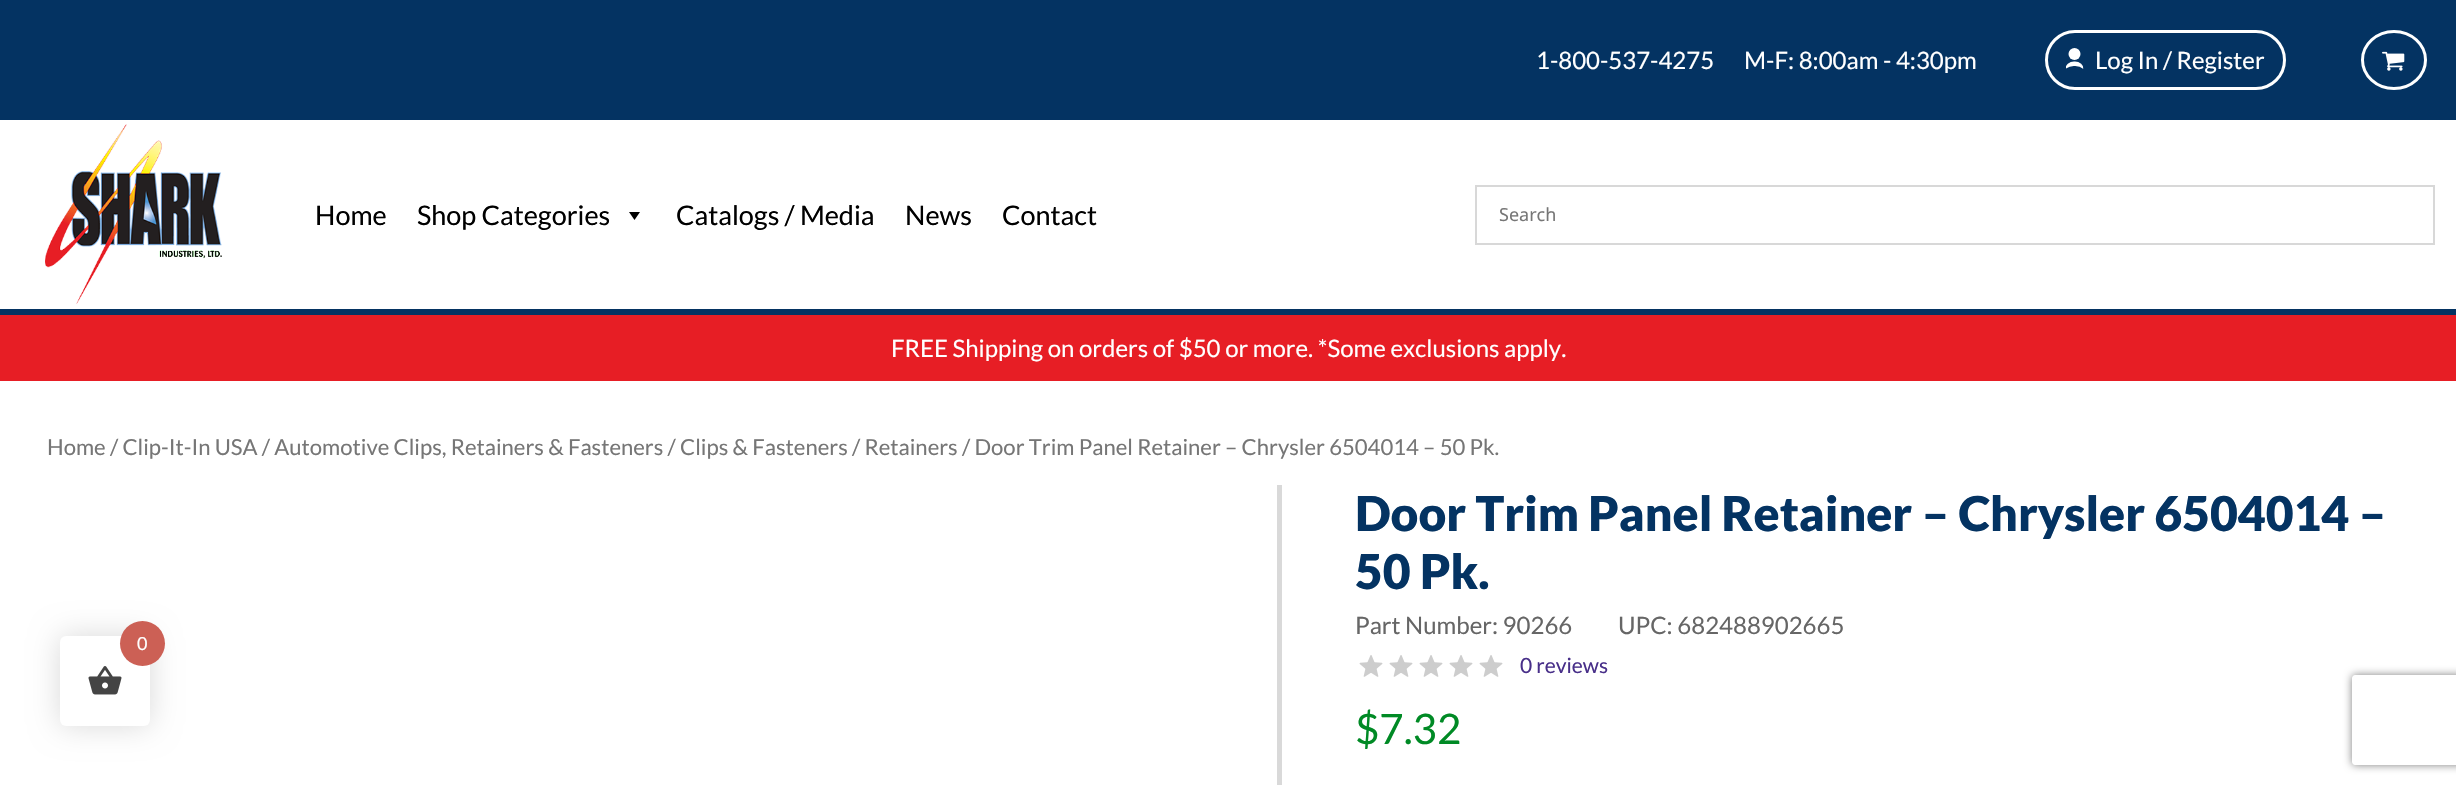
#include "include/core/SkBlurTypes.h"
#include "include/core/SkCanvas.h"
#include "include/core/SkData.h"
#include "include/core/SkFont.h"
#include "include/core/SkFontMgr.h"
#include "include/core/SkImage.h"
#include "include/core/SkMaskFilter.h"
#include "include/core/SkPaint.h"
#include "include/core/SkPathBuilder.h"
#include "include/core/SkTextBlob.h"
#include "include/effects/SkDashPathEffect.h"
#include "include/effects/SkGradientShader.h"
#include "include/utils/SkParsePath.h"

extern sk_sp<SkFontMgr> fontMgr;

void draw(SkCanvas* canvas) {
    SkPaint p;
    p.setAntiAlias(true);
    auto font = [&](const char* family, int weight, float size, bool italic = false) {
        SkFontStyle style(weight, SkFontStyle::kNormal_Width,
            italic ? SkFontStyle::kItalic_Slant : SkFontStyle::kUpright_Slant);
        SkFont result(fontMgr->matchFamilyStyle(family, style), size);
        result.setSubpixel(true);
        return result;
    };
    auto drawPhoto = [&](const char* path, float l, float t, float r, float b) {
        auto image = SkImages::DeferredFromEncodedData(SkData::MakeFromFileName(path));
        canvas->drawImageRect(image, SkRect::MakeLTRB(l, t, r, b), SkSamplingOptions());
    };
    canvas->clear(0xFFFFFFFF);
    p.setColor(0xFF043362);
    canvas->drawRect(SkRect::MakeLTRB(0, 0, 2456, 120), p);
    auto font1 = font("Lato", 400, 24);
    p.setColor(0xFFFFFFFF);
    canvas->drawString("1-800-537-4275", 1536, 69, font1, p);
    canvas->drawString("M-F: 8:00am - 4:30pm", 1744, 69, font1, p);
    p.setStyle(SkPaint::kStroke_Style);
    p.setStrokeWidth(3);
    canvas->drawRoundRect(SkRect::MakeLTRB(2046.5f, 31.5f, 2284.5f, 88.5f), 28.5f, 28.5f, p);
    drawPhoto("media/1.png", 2066, 48, 2084, 69);
    p.setStyle(SkPaint::kFill_Style);
    canvas->drawString("Log In / Register", 2095, 69, font1, p);
    p.setStyle(SkPaint::kStroke_Style);
    canvas->drawPath(SkPathBuilder().moveTo(2394, 31.5f).cubicTo(2411.5f, 31.5f, 2425.5f, 44.5f, 2425.5f, 60).cubicTo(2425.5f, 75.5f, 2411.5f, 88.5f, 2394, 88.5f).cubicTo(2376.5f, 88.5f, 2362.5f, 75.5f, 2362.5f, 60).cubicTo(2362.5f, 44.5f, 2376.5f, 31.5f, 2394, 31.5f).close().detach(), p);
    drawPhoto("media/2.png", 2382, 51, 2405, 71);
    p.setStyle(SkPaint::kFill_Style);
    p.setColor(0xFF043362);
    canvas->drawRect(SkRect::MakeLTRB(0, 309, 2456, 315), p);
    drawPhoto("media/3.png", 45, 124, 222, 304);
    auto font2 = font("Lato", 400, 27);
    p.setColor(0xFF000000);
    canvas->drawString("Home", 315, 225, font2, p);
    canvas->drawString("Shop Categories", 417, 225, font2, p);
    canvas->drawPath(SkPathBuilder().moveTo(640, 212).lineTo(634.5f, 220).lineTo(629, 212).close().detach(), p);
    {
        const struct { const char* s; float x, y; } items[] = {
            {"Catalogs / Media", 676, 225},
            {"News", 905, 225},
            {"Contact", 1002, 225},
        };
        for (auto [s, x, y] : items) {
            canvas->drawString(s, x, y, font2, p);
        }
    }
    p.setStyle(SkPaint::kStroke_Style);
    p.setStrokeWidth(2);
    p.setColor(0xFFD8D8D8);
    canvas->drawRect(SkRect::MakeLTRB(1476, 186, 2434, 244), p);
    auto font3 = font("Noto Sans", 400, 18);
    p.setStyle(SkPaint::kFill_Style);
    p.setColor(0xFF767676);
    canvas->drawString("Search", 1499, 221, font3, p);
    p.setColor(0xFFE71E25);
    canvas->drawRect(SkRect::MakeLTRB(0, 315, 2456, 381), p);
    p.setColor(0xFFFFFFFF);
    canvas->drawString("FREE Shipping on orders of $50 or more. *Some exclusions apply.", 891, 357, font1, p);
    auto font4 = font("Lato", 400, 22.08f);
    p.setColor(0xFF767676);
    canvas->drawString("Home / Clip-It-In USA / Automotive Clips, Retainers & Fasteners / Clips & Fasteners / Retainers / Door Trim Panel Retainer – Chrysler 6504014 – 50 Pk.", 47, 455, font4, p);
    p.setColor(0xFFD9D9D9);
    canvas->drawRect(SkRect::MakeLTRB(1277, 485, 1282, 785), p);
    auto font5 = font("Lato", 900, 48);
    p.setColor(0xFF043362);
    canvas->drawString("Door Trim Panel Retainer – Chrysler 6504014 –", 1355, 531, font5, p);
    canvas->drawString("50 Pk.", 1355, 589, font5, p);
    p.setColor(0xFF666666);
    canvas->drawString("Part Number: 90266", 1355, 634, font1, p);
    canvas->drawString("UPC: 682488902665", 1618, 634, font1, p);
    drawPhoto("media/4.png", 1359, 655, 1503, 677);
    auto font6 = font("Lato", 400, 21);
    p.setColor(0xFF482F89);
    canvas->drawString("0 reviews", 1520, 673, font6, p);
    auto font7 = font("Lato", 400, 42);
    p.setColor(0xFF008A25);
    canvas->drawString("$7.32", 1355, 744, font7, p);
    p.setColor(0x26000000);
    p.setMaskFilter(SkMaskFilter::MakeBlur(kNormal_SkBlurStyle, 15));
    canvas->drawRoundRect(SkRect::MakeLTRB(60, 636, 150, 726), 6, 6, p);
    p.setMaskFilter(nullptr);
    p.setColor(0xFFFFFFFF);
    canvas->drawRoundRect(SkRect::MakeLTRB(60, 636, 150, 726), 6, 6, p);
    p.setColor(0xFFCC6055);
    canvas->drawCircle(142.5f, 643.5f, 22.5f, p);
    auto font8 = font("Lato", 400, 18);
    p.setColor(0xFFFFFFFF);
    canvas->drawString("0", 137, 650, font8, p);
    drawPhoto("media/5.png", 88, 666, 122, 695);
    canvas->save();
    canvas->clipPath(SkPathBuilder(SkPathFillType::kEvenOdd).moveTo(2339, 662).lineTo(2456, 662).lineTo(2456, 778).lineTo(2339, 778).close().moveTo(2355, 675).lineTo(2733, 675).cubicTo(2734.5f, 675, 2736, 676.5f, 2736, 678).lineTo(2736, 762).cubicTo(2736, 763.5f, 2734.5f, 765, 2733, 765).lineTo(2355, 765).cubicTo(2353.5f, 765, 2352, 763.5f, 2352, 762).lineTo(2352, 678).cubicTo(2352, 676.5f, 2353.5f, 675, 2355, 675).close().detach(), true);
    p.setColor(0xFF808080);
    p.setMaskFilter(SkMaskFilter::MakeBlur(kNormal_SkBlurStyle, 4));
    canvas->drawRoundRect(SkRect::MakeLTRB(2352, 675, 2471, 765), 3, 3, p);
    p.setMaskFilter(nullptr);
    canvas->restore();
}
